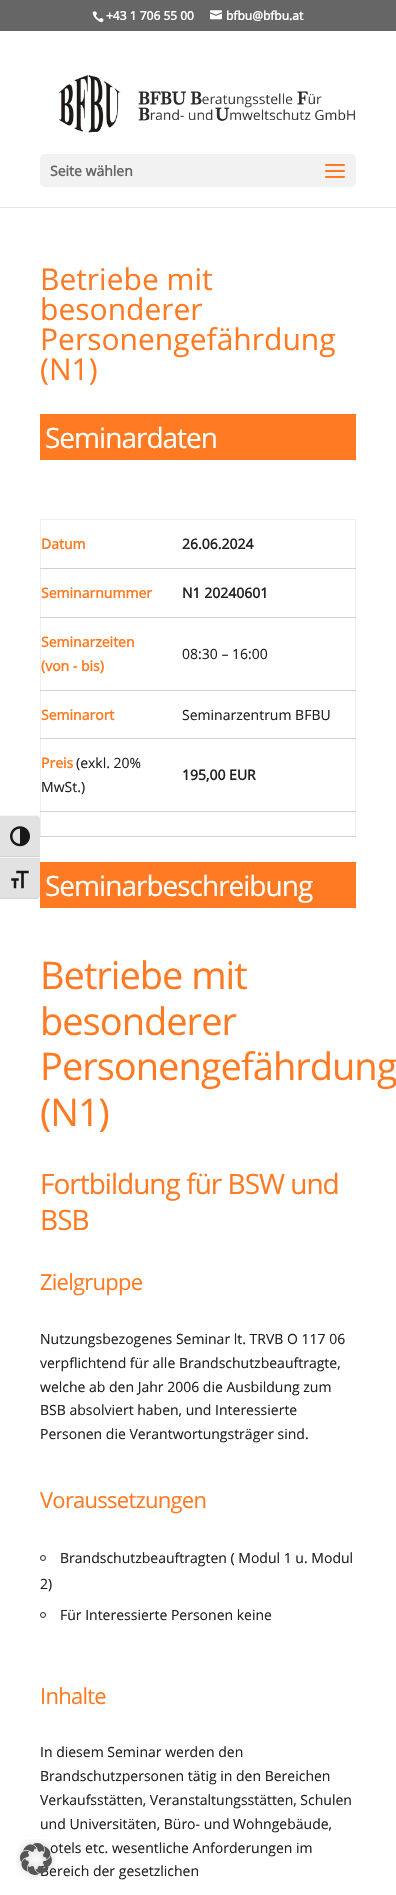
#include "include/core/SkBlurTypes.h"
#include "include/core/SkCanvas.h"
#include "include/core/SkData.h"
#include "include/core/SkFont.h"
#include "include/core/SkFontMgr.h"
#include "include/core/SkImage.h"
#include "include/core/SkMaskFilter.h"
#include "include/core/SkPaint.h"
#include "include/core/SkPathBuilder.h"
#include "include/core/SkTextBlob.h"
#include "include/effects/SkDashPathEffect.h"
#include "include/effects/SkGradientShader.h"
#include "include/utils/SkParsePath.h"

extern sk_sp<SkFontMgr> fontMgr;

void draw(SkCanvas* canvas) {
    SkPaint p;
    p.setAntiAlias(true);
    auto font = [&](const char* family, int weight, float size, bool italic = false) {
        SkFontStyle style(weight, SkFontStyle::kNormal_Width,
            italic ? SkFontStyle::kItalic_Slant : SkFontStyle::kUpright_Slant);
        SkFont result(fontMgr->matchFamilyStyle(family, style), size);
        result.setSubpixel(true);
        return result;
    };
    auto drawTracked = [&](const char* s, float x, float y, const SkFont& font, const SkPaint& ink, float letter, float word) {
        std::vector<SkGlyphID> glyphs(font.countText(s, strlen(s), SkTextEncoding::kUTF8));
        std::vector<float> xs(glyphs.size());
        font.textToGlyphs(s, strlen(s), SkTextEncoding::kUTF8, glyphs);
        font.getXPos(glyphs, xs, x);
        float extra = 0;
        for (size_t i = 0; i < glyphs.size(); i++) {
            xs[i] += extra;
            extra += letter + word * (glyphs[i] == font.unicharToGlyph(' '));
        }
        canvas->drawTextBlob(SkTextBlob::MakeFromPosHGlyphs(glyphs, xs, y, font), 0, 0, ink);
    };
    auto drawPhoto = [&](const char* path, float l, float t, float r, float b) {
        auto image = SkImages::DeferredFromEncodedData(SkData::MakeFromFileName(path));
        canvas->drawImageRect(image, SkRect::MakeLTRB(l, t, r, b), SkSamplingOptions());
    };
    canvas->clear(0xFFFFFFFF);
    p.setColor(0xFFE2E2E2);
    canvas->drawPath(SkPathBuilder().moveTo(0, 815).lineTo(36, 815).cubicTo(38, 815, 40, 817, 40, 819).lineTo(40, 857).lineTo(0, 857).close().detach(), p);
    p.setColor(0xFFF5F5F5);
    canvas->drawPath(SkPathBuilder().moveTo(0, 815).lineTo(0, 816).lineTo(36, 816).cubicTo(38, 816, 40, 817, 40, 819).cubicTo(40, 817, 38, 815, 36, 815).close().detach(), p);
    p.setColor(0xFFD2D2D2);
    canvas->drawRect(SkRect::MakeLTRB(0, 856, 40, 857), p);
    drawPhoto("media/1.png", 10, 826, 30, 847);
    p.setColor(0xFFE2E2E2);
    canvas->drawPath(SkPathBuilder().moveTo(0, 857).lineTo(40, 857).lineTo(40, 895).cubicTo(40, 897, 38, 899, 36, 899).lineTo(0, 899).close().detach(), p);
    p.setColor(0xFFF5F5F5);
    canvas->drawRect(SkRect::MakeLTRB(0, 857, 40, 858), p);
    p.setColor(0xFFD2D2D2);
    canvas->drawPath(SkPathBuilder().moveTo(0, 898).lineTo(0, 899).lineTo(36, 899).cubicTo(38, 899, 40, 897, 40, 895).cubicTo(40, 897, 38, 898, 36, 898).close().detach(), p);
    drawPhoto("media/2.png", 11, 870, 29, 889);
    p.setColor(0xFF666666);
    canvas->drawRect(SkRect::MakeLTRB(0, 0, 396, 31), p);
    drawPhoto("media/3.png", 92, 11, 104, 23);
    auto font1 = font("Open Sans", 700, 12);
    p.setColor(0xFFFFFFFF);
    canvas->drawString("+43 1 706 55 00", 106, 20, font1, p);
    drawPhoto("media/4.png", 210, 10, 222, 20);
    canvas->drawString("bfbu@bfbu.at", 226, 20, font1, p);
    p.setColor(0xFFE6E6E6);
    canvas->drawRect(SkRect::MakeLTRB(0, 207, 396, 208), p);
    drawPhoto("media/5.png", 59, 75, 355, 133);
    p.setColor(0xFFF2F2F2);
    canvas->drawRoundRect(SkRect::MakeLTRB(40, 154, 356, 187), 5, 5, p);
    auto font2 = font("Open Sans", 700, 14);
    p.setColor(0xFF666666);
    canvas->drawString("Seite wählen", 50, 176, font2, p);
    drawPhoto("media/6.png", 325, 164, 345, 178);
    auto font3 = font("Open Sans", 400, 30);
    p.setColor(0xFFFF7A22);
    {
        const struct { const char* s; float x, y; } items[] = {
            {"Betriebe mit", 40, 290},
            {"besonderer", 40, 320},
            {"Personengefährdung", 40, 350},
            {"(N1)", 40, 380},
        };
        for (auto [s, x, y] : items) {
            canvas->drawString(s, x, y, font3, p);
        }
    }
    canvas->drawRect(SkRect::MakeLTRB(40, 414, 356, 460), p);
    auto font4 = font("Open Sans", 400, 28);
    p.setColor(0xFFFFFFFF);
    drawTracked("Seminardaten", 45, 448, font4, p, -1, 0);
    {
        const struct { float l, t, r, b; SkColor color; } items[] = {
            {40, 519, 356, 520, 0xFFEEEEEE},
            {355, 519, 356, 837, 0xFFEEEEEE},
            {40, 519, 41, 837, 0xFFEEEEEE},
        };
        for (auto [l, t, r, b, color] : items) {
            p.setColor(color);
            canvas->drawRect(SkRect::MakeLTRB(l, t, r, b), p);
        }
    }
    p.setColor(0xFFFF7A22);
    canvas->drawString("Datum", 41, 549, font2, p);
    p.setColor(0xFFD1D1D1);
    canvas->drawRect(SkRect::MakeLTRB(40, 568, 356, 569), p);
    p.setColor(0xFF212121);
    canvas->drawString("26.06.2024", 182, 549, font2, p);
    p.setColor(0xFFFF7A22);
    canvas->drawString("Seminarnummer", 41, 598, font2, p);
    p.setColor(0xFFD1D1D1);
    canvas->drawRect(SkRect::MakeLTRB(40, 617, 356, 618), p);
    p.setColor(0xFF212121);
    canvas->drawString("N1 20240601", 182, 598, font2, p);
    p.setColor(0xFFFF7A22);
    canvas->drawString("Seminarzeiten", 41, 647, font2, p);
    canvas->drawString("(von - bis)", 41, 671, font2, p);
    p.setColor(0xFFD1D1D1);
    canvas->drawRect(SkRect::MakeLTRB(40, 690, 356, 691), p);
    auto font5 = font("Open Sans", 400, 14);
    p.setColor(0xFF212121);
    canvas->drawString("08:30 – 16:00", 182, 659, font5, p);
    p.setColor(0xFFFF7A22);
    canvas->drawString("Seminarort", 41, 720, font2, p);
    p.setColor(0xFFD1D1D1);
    canvas->drawRect(SkRect::MakeLTRB(40, 738, 356, 739), p);
    p.setColor(0xFF212121);
    canvas->drawString("Seminarzentrum BFBU", 182, 720, font5, p);
    p.setColor(0xFFFF7A22);
    canvas->drawString("Preis", 41, 768, font2, p);
    p.setColor(0xFF212121);
    canvas->drawString("(exkl. 20%", 76, 768, font5, p);
    canvas->drawString("MwSt.)", 41, 792, font5, p);
    p.setColor(0xFFD1D1D1);
    canvas->drawRect(SkRect::MakeLTRB(40, 811, 356, 812), p);
    p.setColor(0xFF212121);
    canvas->drawString("195,00 EUR", 182, 780, font2, p);
    p.setColor(0xFFD1D1D1);
    canvas->drawRect(SkRect::MakeLTRB(40, 836, 356, 837), p);
    p.setColor(0xFFFF7A22);
    canvas->drawRect(SkRect::MakeLTRB(40, 862, 356, 908), p);
    p.setColor(0xFFFFFFFF);
    drawTracked("Seminarbeschreibung", 45, 896, font4, p, -1, 0);
    auto font6 = font("Open Sans", 400, 38);
    p.setColor(0xFFFF7A22);
    {
        const struct { const char* s; float x, y; } items[] = {
            {"Betriebe mit", 40, 989},
            {"besonderer", 40, 1035},
            {"Personengefährdung", 40, 1080},
            {"(N1)", 40, 1126},
        };
        for (auto [s, x, y] : items) {
            drawTracked(s, x, y, font6, p, -1, 0);
        }
    }
    drawTracked("Fortbildung für BSW und", 40, 1194, font4, p, -1, 0);
    drawTracked("BSB", 40, 1230, font4, p, -1, 0);
    auto font7 = font("Open Sans", 400, 22);
    drawTracked("Zielgruppe", 40, 1290, font7, p, -0.75f, 0);
    p.setColor(0xFF212121);
    {
        const struct { const char* s; float x, y; } items[] = {
            {"Nutzungsbezogenes Seminar lt. TRVB O 117 06", 40, 1344},
            {"verpflichtend für alle Brandschutzbeauftragte,", 40, 1368},
            {"welche ab den Jahr 2006 die Ausbildung zum", 40, 1392},
            {"BSB absolviert haben, und Interessierte", 40, 1415},
            {"Personen die Verantwortungsträger sind.", 40, 1439},
        };
        for (auto [s, x, y] : items) {
            canvas->drawString(s, x, y, font5, p);
        }
    }
    p.setColor(0xFFFF7A22);
    drawTracked("Voraussetzungen", 40, 1508, font7, p, -0.75f, 0);
    p.setStyle(SkPaint::kStroke_Style);
    p.setStrokeWidth(1);
    p.setColor(0xFF212121);
    canvas->drawCircle(43, 1558, 2.5f, p);
    p.setStyle(SkPaint::kFill_Style);
    canvas->drawString("Brandschutzbeauftragten ( Modul 1 u. Modul", 60, 1563, font5, p);
    canvas->drawString("2)", 40, 1589, font5, p);
    p.setStyle(SkPaint::kStroke_Style);
    canvas->drawCircle(43, 1615, 2.5f, p);
    p.setStyle(SkPaint::kFill_Style);
    canvas->drawString("Für Interessierte Personen keine", 60, 1620, font5, p);
    p.setColor(0xFFFF7A22);
    drawTracked("Inhalte", 40, 1704, font7, p, -0.75f, 0);
    p.setColor(0xFF212121);
    {
        const struct { const char* s; float x, y; } items[] = {
            {"In diesem Seminar werden den", 40, 1757},
            {"Brandschutzpersonen tätig in den Bereichen", 40, 1781},
            {"Verkaufsstätten, Veranstaltungsstätten, Schulen", 40, 1805},
            {"und Universitäten, Büro- und Wohngebäude,", 40, 1829},
            {"otels etc. wesentliche Anforderungen im", 50, 1853},
            {"Bereich der gesetzlichen", 40, 1876},
        };
        for (auto [s, x, y] : items) {
            canvas->drawString(s, x, y, font5, p);
        }
    }
    drawPhoto("media/7.png", 16, 1839, 56, 1879);
}
